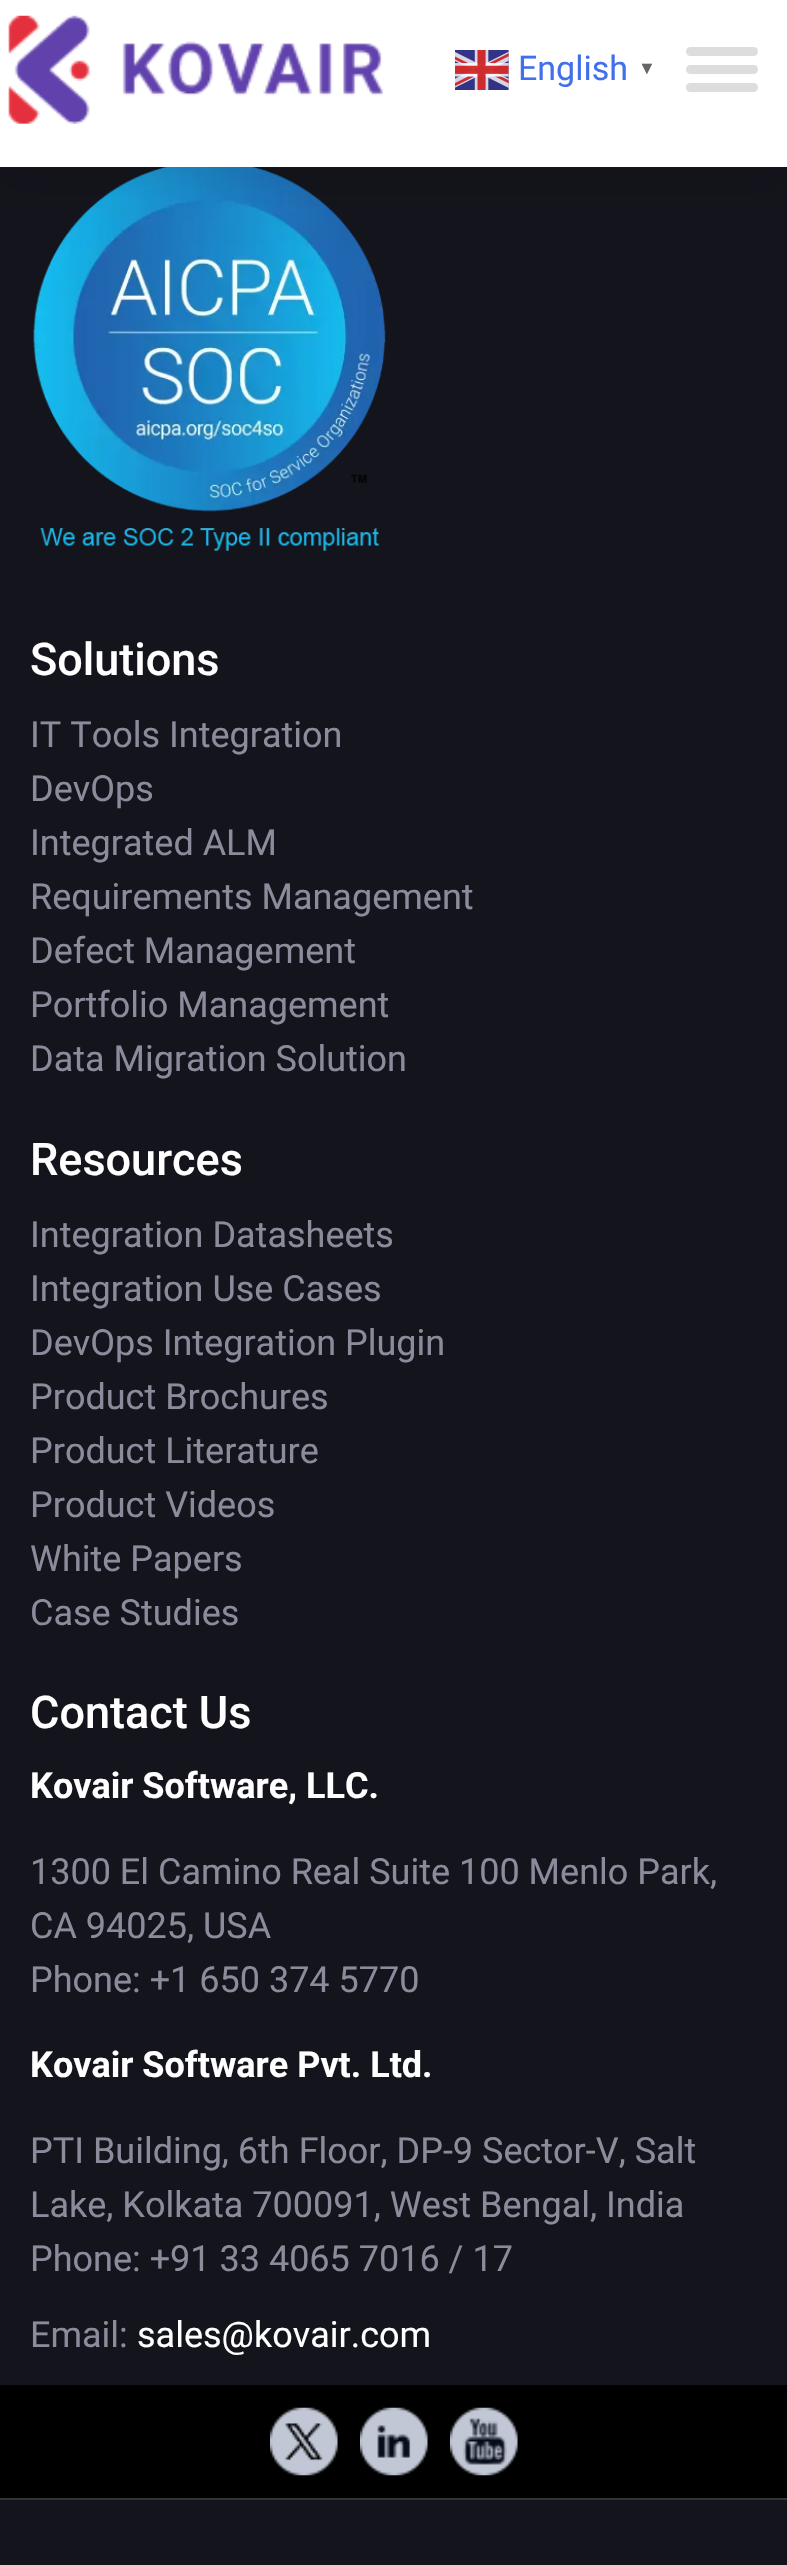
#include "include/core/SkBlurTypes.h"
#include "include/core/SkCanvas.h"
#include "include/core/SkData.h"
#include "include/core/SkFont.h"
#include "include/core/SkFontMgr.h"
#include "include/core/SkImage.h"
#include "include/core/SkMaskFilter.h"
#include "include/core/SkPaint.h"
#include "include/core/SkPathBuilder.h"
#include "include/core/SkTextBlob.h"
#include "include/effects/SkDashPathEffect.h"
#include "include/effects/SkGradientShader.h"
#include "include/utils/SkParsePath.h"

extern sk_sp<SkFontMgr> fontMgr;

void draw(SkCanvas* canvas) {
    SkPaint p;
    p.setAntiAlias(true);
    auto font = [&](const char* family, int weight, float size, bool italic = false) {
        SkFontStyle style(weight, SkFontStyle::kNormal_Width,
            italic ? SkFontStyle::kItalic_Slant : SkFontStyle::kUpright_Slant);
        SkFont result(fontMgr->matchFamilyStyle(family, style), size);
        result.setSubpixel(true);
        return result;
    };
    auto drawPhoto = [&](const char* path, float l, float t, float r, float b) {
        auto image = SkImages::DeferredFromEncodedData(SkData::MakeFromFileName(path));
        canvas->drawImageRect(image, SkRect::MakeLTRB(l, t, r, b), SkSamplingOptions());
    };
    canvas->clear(0xFF14141C);
    drawPhoto("media/3.png", 33, 167, 386, 551);
    p.setColor(0x1A000000);
    p.setMaskFilter(SkMaskFilter::MakeBlur(kNormal_SkBlurStyle, 22.5f));
    canvas->drawRect(SkRect::MakeLTRB(0, 11, 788, 178), p);
    p.setMaskFilter(nullptr);
    p.setColor(0xFFFFFFFF);
    canvas->drawRect(SkRect::MakeLTRB(0, 0, 787, 167), p);
    drawPhoto("media/1.png", 8, 15, 383, 124);
    drawPhoto("media/2.png", 455, 50, 509, 90);
    auto font1 = font("Roboto", 400, 34);
    p.setColor(0xFF4270EC);
    canvas->drawString("English", 518, 80, font1, p);
    auto font2 = font("Liberation Sans", 700, 18);
    p.setColor(0xFF666666);
    canvas->drawString("▼", 638, 74, font2, p);
    p.setColor(0xFFDDDDDD);
    canvas->drawRoundRect(SkRect::MakeLTRB(686, 47, 758, 56), 4.5f, 4.5f, p);
    canvas->drawRoundRect(SkRect::MakeLTRB(686, 65, 758, 74), 4.5f, 4.5f, p);
    canvas->drawRoundRect(SkRect::MakeLTRB(686, 83, 758, 92), 4.5f, 4.5f, p);
    auto font3 = font("Roboto", 500, 45);
    p.setColor(0xFFFFFFFF);
    canvas->drawString("Solutions", 30, 675, font3, p);
    auto font4 = font("Roboto", 400, 36);
    p.setColor(0xFF8B8B9C);
    {
        const struct { const char* s; float x, y; } items[] = {
            {"IT Tools Integration", 30, 747},
            {"DevOps", 30, 801},
            {"Integrated ALM", 30, 855},
            {"Requirements Management", 30, 909},
            {"Defect Management", 30, 963},
            {"Portfolio Management", 30, 1017},
            {"Data Migration Solution", 30, 1071},
        };
        for (auto [s, x, y] : items) {
            canvas->drawString(s, x, y, font4, p);
        }
    }
    p.setColor(0xFFFFFFFF);
    canvas->drawString("Resources", 30, 1175, font3, p);
    p.setColor(0xFF8B8B9C);
    {
        const struct { const char* s; float x, y; } items[] = {
            {"Integration Datasheets", 30, 1247},
            {"Integration Use Cases", 30, 1301},
            {"DevOps Integration Plugin", 30, 1355},
            {"Product Brochures", 30, 1409},
            {"Product Literature", 30, 1463},
            {"Product Videos", 30, 1517},
            {"White Papers", 30, 1571},
            {"Case Studies", 30, 1625},
        };
        for (auto [s, x, y] : items) {
            canvas->drawString(s, x, y, font4, p);
        }
    }
    p.setColor(0xFFFFFFFF);
    canvas->drawString("Contact Us", 30, 1728, font3, p);
    auto font5 = font("Roboto", 700, 36);
    canvas->drawString("Kovair Software, LLC.", 30, 1798, font5, p);
    p.setColor(0xFF8B8B9C);
    {
        const struct { const char* s; float x, y; } items[] = {
            {"1300 El Camino Real Suite 100 Menlo Park,", 30, 1884},
            {"CA 94025, USA", 30, 1938},
            {"Phone: +1 650 374 5770", 30, 1992},
        };
        for (auto [s, x, y] : items) {
            canvas->drawString(s, x, y, font4, p);
        }
    }
    p.setColor(0xFFFFFFFF);
    canvas->drawString("Kovair Software Pvt. Ltd.", 30, 2077, font5, p);
    p.setColor(0xFF8B8B9C);
    {
        const struct { const char* s; float x, y; } items[] = {
            {"PTI Building, 6th Floor, DP-9 Sector-V, Salt", 30, 2163},
            {"Lake, Kolkata 700091, West Bengal, India", 30, 2217},
            {"Phone: +91 33 4065 7016 / 17", 30, 2271},
            {"Email:", 30, 2347},
        };
        for (auto [s, x, y] : items) {
            canvas->drawString(s, x, y, font4, p);
        }
    }
    p.setColor(0xFFFFFFFF);
    canvas->drawString("sales@kovair.com", 137, 2347, font4, p);
    p.setColor(0xFF000000);
    canvas->drawRect(SkRect::MakeLTRB(0, 2385, 787, 2498), p);
    drawPhoto("media/4.png", 270, 2407, 338, 2476);
    drawPhoto("media/5.png", 360, 2407, 428, 2476);
    drawPhoto("media/6.png", 450, 2407, 518, 2476);
    p.setColor(0xFF333333);
    canvas->drawRect(SkRect::MakeLTRB(0, 2498, 787, 2500), p);
}
